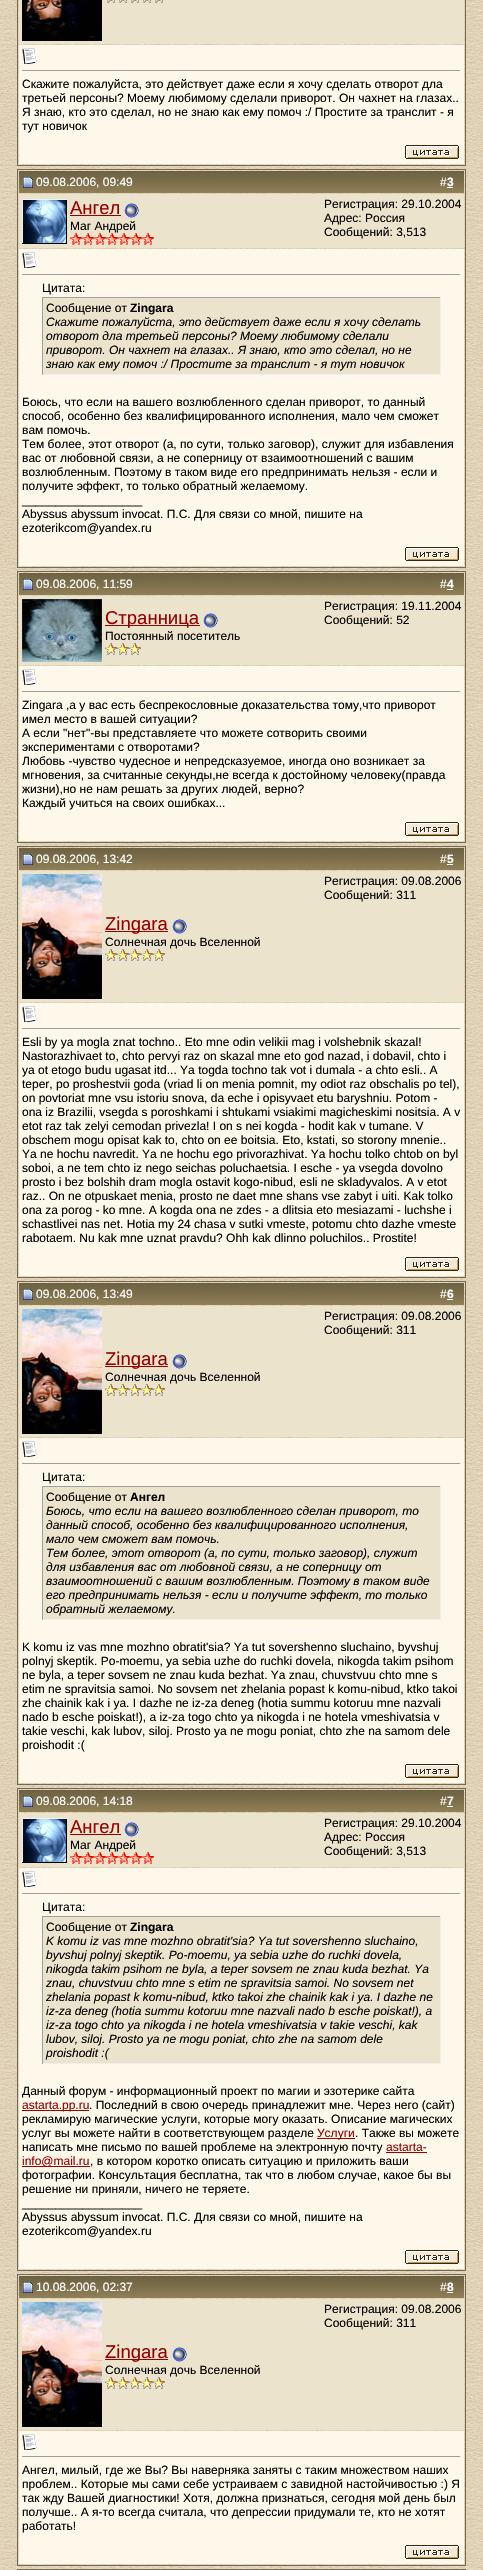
#include "include/core/SkBlurTypes.h"
#include "include/core/SkCanvas.h"
#include "include/core/SkData.h"
#include "include/core/SkFont.h"
#include "include/core/SkFontMgr.h"
#include "include/core/SkImage.h"
#include "include/core/SkMaskFilter.h"
#include "include/core/SkPaint.h"
#include "include/core/SkPathBuilder.h"
#include "include/core/SkTextBlob.h"
#include "include/effects/SkDashPathEffect.h"
#include "include/effects/SkGradientShader.h"
#include "include/utils/SkParsePath.h"

extern sk_sp<SkFontMgr> fontMgr;

void draw(SkCanvas* canvas) {
    SkPaint p;
    p.setAntiAlias(true);
    auto font = [&](const char* family, int weight, float size, bool italic = false) {
        SkFontStyle style(weight, SkFontStyle::kNormal_Width,
            italic ? SkFontStyle::kItalic_Slant : SkFontStyle::kUpright_Slant);
        SkFont result(fontMgr->matchFamilyStyle(family, style), size);
        result.setSubpixel(true);
        return result;
    };
    auto drawPhoto = [&](const char* path, float l, float t, float r, float b) {
        auto image = SkImages::DeferredFromEncodedData(SkData::MakeFromFileName(path));
        canvas->drawImageRect(image, SkRect::MakeLTRB(l, t, r, b), SkSamplingOptions());
    };
    canvas->clear(0xFFFFFFFF);
    drawPhoto("media/1.png", 0, 0, 483, 2570);
    p.setStyle(SkPaint::kStroke_Style);
    p.setStrokeWidth(1);
    p.setColor(0xFF736A55);
    canvas->drawRect(SkRect::MakeLTRB(17.5f, -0.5f, 465.5f, 165.5f), p);
    p.setStyle(SkPaint::kFill_Style);
    p.setColor(0xFFECE3CD);
    canvas->drawRect(SkRect::MakeLTRB(19, 0, 464, 44), p);
    drawPhoto("media/2.png", 22, 0, 102, 41);
    drawPhoto("media/3.png", 107, 0, 115, 3);
    drawPhoto("media/3.png", 119, 0, 127, 3);
    drawPhoto("media/3.png", 131, 0, 139, 3);
    drawPhoto("media/3.png", 143, 0, 151, 3);
    drawPhoto("media/3.png", 155, 0, 163, 3);
    p.setColor(0xFFFEF8EB);
    canvas->drawRect(SkRect::MakeLTRB(19, 45, 464, 164), p);
    drawPhoto("media/4.png", 22, 48, 37, 64);
    p.setColor(0xFF9F9F9F);
    canvas->drawRect(SkRect::MakeLTRB(22, 70, 461, 71), p);
    p.setColor(0xFFEEEEEE);
    canvas->drawRect(SkRect::MakeLTRB(460, 70, 461, 71), p);
    auto font1 = font("Liberation Sans", 400, 12);
    p.setColor(0xFF000000);
    {
        const struct { const char* s; float x, y; } items[] = {
            {"Скажите пожалуйста, это действует даже если я хочу сделать отворот дла", 22, 88},
            {"третьей персоны? Моему любимому сделали приворот. Он чахнет на глазах..", 22, 102},
            {"Я знаю, кто это сделал, но не знаю как ему помоч :/ Простите за транслит - я", 22, 116},
            {"тут новичок", 22, 130},
        };
        for (auto [s, x, y] : items) {
            canvas->drawString(s, x, y, font1, p);
        }
    }
    drawPhoto("media/5.png", 405, 145, 459, 159);
    p.setStyle(SkPaint::kStroke_Style);
    p.setColor(0xFF736A55);
    canvas->drawRect(SkRect::MakeLTRB(17.5f, 169.5f, 465.5f, 567.5f), p);
    drawPhoto("media/6.png", 19, 171, 464, 193);
    drawPhoto("media/7.png", 23, 177, 33, 188);
    p.setStyle(SkPaint::kFill_Style);
    p.setColor(0xFFFFFFFF);
    canvas->drawString("09.08.2006, 09:49", 36, 186, font1, p);
    canvas->drawString("#", 440, 186, font1, p);
    auto font2 = font("Liberation Sans", 700, 12);
    canvas->drawString("3", 447, 186, font2, p);
    canvas->drawRect(SkRect::MakeLTRB(447, 187, 453, 188), p);
    p.setColor(0xFFECE3CD);
    canvas->drawRect(SkRect::MakeLTRB(19, 194, 464, 248), p);
    drawPhoto("media/8.png", 22, 199, 67, 244);
    auto font3 = font("Liberation Sans", 400, 18.5f);
    p.setColor(0xFF990000);
    canvas->drawString("Ангел", 70, 214, font3, p);
    canvas->drawRect(SkRect::MakeLTRB(70, 215, 121, 216), p);
    drawPhoto("media/9.png", 124, 203, 139, 218);
    p.setColor(0xFF000000);
    canvas->drawString("Маг Андрей", 70, 230, font1, p);
    drawPhoto("media/10.png", 70, 233, 82, 245);
    drawPhoto("media/10.png", 82, 233, 94, 245);
    drawPhoto("media/10.png", 94, 233, 106, 245);
    drawPhoto("media/10.png", 106, 233, 118, 245);
    drawPhoto("media/10.png", 118, 233, 130, 245);
    drawPhoto("media/10.png", 130, 233, 142, 245);
    drawPhoto("media/10.png", 142, 233, 154, 245);
    {
        const struct { const char* s; float x, y; } items[] = {
            {"Регистрация: 29.10.2004", 324, 208},
            {"Адрес: Россия", 324, 222},
            {"Сообщений: 3,513", 324, 236},
        };
        for (auto [s, x, y] : items) {
            canvas->drawString(s, x, y, font1, p);
        }
    }
    p.setColor(0xFFFEF8EB);
    canvas->drawRect(SkRect::MakeLTRB(19, 249, 464, 566), p);
    drawPhoto("media/4.png", 22, 252, 37, 268);
    p.setColor(0xFF9F9F9F);
    canvas->drawRect(SkRect::MakeLTRB(22, 274, 461, 275), p);
    p.setColor(0xFFEEEEEE);
    canvas->drawRect(SkRect::MakeLTRB(460, 274, 461, 275), p);
    p.setColor(0xFF000000);
    canvas->drawString("Цитата:", 42, 292, font1, p);
    {
        const struct { float l, t, r, b; SkColor color; } items[] = {
            {43, 298, 440, 374, 0xFFECE3CD},
            {42, 297, 441, 298, 0xFF9F9F9F},
            {440, 297, 441, 375, 0xFFEEEEEE},
            {42, 374, 441, 375, 0xFFEEEEEE},
            {42, 297, 43, 375, 0xFF9F9F9F},
        };
        for (auto [l, t, r, b, color] : items) {
            p.setColor(color);
            canvas->drawRect(SkRect::MakeLTRB(l, t, r, b), p);
        }
    }
    p.setColor(0xFF000000);
    canvas->drawString("Сообщение от", 46, 312, font1, p);
    canvas->drawString("Zingara", 130, 312, font2, p);
    auto font4 = font("Liberation Sans", 400, 12, true);
    {
        const struct { const char* s; float x, y; } items[] = {
            {"Скажите пожалуйста, это действует даже если я хочу сделать", 46, 326},
            {"отворот дла третьей персоны? Моему любимому сделали", 46, 340},
            {"приворот. Он чахнет на глазах.. Я знаю, кто это сделал, но не", 46, 354},
            {"знаю как ему помоч :/ Простите за транслит - я тут новичок", 46, 368},
        };
        for (auto [s, x, y] : items) {
            canvas->drawString(s, x, y, font4, p);
        }
    }
    {
        const struct { const char* s; float x, y; } items[] = {
            {"Боюсь, что если на вашего возлюбленного сделан приворот, то данный", 22, 406},
            {"способ, особенно без квалифицированного исполнения, мало чем сможет", 22, 420},
            {"вам помочь.", 22, 434},
            {"Тем более, этот отворот (а, по сути, только заговор), служит для избавления", 22, 448},
            {"вас от любовной связи, а не соперницу от взаимоотношений с вашим", 22, 462},
            {"возлюбленным. Поэтому в таком виде его предпринимать нельзя - если и", 22, 476},
            {"получите эффект, то только обратный желаемому.", 22, 490},
            {"__________________", 22, 504},
            {"Abyssus abyssum invocat. П.С. Для связи со мной, пишите на", 22, 518},
            {"ezoterikcom@yandex.ru", 22, 532},
        };
        for (auto [s, x, y] : items) {
            canvas->drawString(s, x, y, font1, p);
        }
    }
    drawPhoto("media/5.png", 405, 547, 459, 561);
    p.setStyle(SkPaint::kStroke_Style);
    p.setColor(0xFF736A55);
    canvas->drawRect(SkRect::MakeLTRB(17.5f, 571.5f, 465.5f, 842.5f), p);
    drawPhoto("media/6.png", 19, 573, 464, 595);
    drawPhoto("media/7.png", 23, 579, 33, 590);
    p.setStyle(SkPaint::kFill_Style);
    p.setColor(0xFFFFFFFF);
    canvas->drawString("09.08.2006, 11:59", 36, 588, font1, p);
    canvas->drawString("#", 440, 588, font1, p);
    canvas->drawString("4", 447, 588, font2, p);
    canvas->drawRect(SkRect::MakeLTRB(447, 589, 453, 590), p);
    p.setColor(0xFFECE3CD);
    canvas->drawRect(SkRect::MakeLTRB(19, 596, 464, 665), p);
    drawPhoto("media/11.png", 22, 599, 102, 662);
    p.setColor(0xFF990000);
    canvas->drawRect(SkRect::MakeLTRB(105, 625, 200, 626), p);
    canvas->drawString("Странница", 105, 624, font3, p);
    drawPhoto("media/9.png", 203, 613, 218, 628);
    p.setColor(0xFF000000);
    canvas->drawString("Постоянный посетитель", 105, 640, font1, p);
    drawPhoto("media/12.png", 105, 643, 117, 655);
    drawPhoto("media/12.png", 117, 643, 129, 655);
    drawPhoto("media/12.png", 129, 643, 141, 655);
    canvas->drawString("Регистрация: 19.11.2004", 324, 610, font1, p);
    canvas->drawString("Сообщений: 52", 324, 624, font1, p);
    p.setColor(0xFFFEF8EB);
    canvas->drawRect(SkRect::MakeLTRB(19, 666, 464, 841), p);
    drawPhoto("media/4.png", 22, 669, 37, 685);
    p.setColor(0xFF9F9F9F);
    canvas->drawRect(SkRect::MakeLTRB(22, 691, 461, 692), p);
    p.setColor(0xFFEEEEEE);
    canvas->drawRect(SkRect::MakeLTRB(460, 691, 461, 692), p);
    p.setColor(0xFF000000);
    {
        const struct { const char* s; float x, y; } items[] = {
            {"Zingara ,а у вас есть беспрекословные доказательства тому,что приворот", 22, 709},
            {"имел место в вашей ситуации?", 22, 723},
            {"А если \"нет\"-вы представляете что можете сотворить своими", 22, 737},
            {"экспериментами с отворотами?", 22, 751},
            {"Любовь -чувство чудесное и непредсказуемое, иногда оно возникает за", 22, 765},
            {"мгновения, за считанные секунды,не всегда к достойному человеку(правда", 22, 779},
            {"жизни),но не нам решать за других людей, верно?", 22, 793},
            {"Каждый учиться на своих ошибках...", 22, 807},
        };
        for (auto [s, x, y] : items) {
            canvas->drawString(s, x, y, font1, p);
        }
    }
    drawPhoto("media/5.png", 405, 822, 459, 836);
    p.setStyle(SkPaint::kStroke_Style);
    p.setColor(0xFF736A55);
    canvas->drawRect(SkRect::MakeLTRB(17.5f, 846.5f, 465.5f, 1277.5f), p);
    drawPhoto("media/6.png", 19, 848, 464, 870);
    drawPhoto("media/7.png", 23, 854, 33, 865);
    p.setStyle(SkPaint::kFill_Style);
    p.setColor(0xFFFFFFFF);
    canvas->drawString("09.08.2006, 13:42", 36, 863, font1, p);
    canvas->drawString("#", 440, 863, font1, p);
    canvas->drawString("5", 447, 863, font2, p);
    canvas->drawRect(SkRect::MakeLTRB(447, 864, 453, 865), p);
    p.setColor(0xFFECE3CD);
    canvas->drawRect(SkRect::MakeLTRB(19, 871, 464, 1002), p);
    drawPhoto("media/13.png", 22, 874, 102, 999);
    p.setColor(0xFF000000);
    canvas->drawString("Регистрация: 09.08.2006", 324, 885, font1, p);
    canvas->drawString("Сообщений: 311", 324, 899, font1, p);
    p.setColor(0xFF990000);
    canvas->drawRect(SkRect::MakeLTRB(105, 931, 168, 932), p);
    canvas->drawString("Zingara", 105, 930, font3, p);
    drawPhoto("media/9.png", 172, 919, 187, 934);
    p.setColor(0xFF000000);
    canvas->drawString("Солнечная дочь Вселенной", 105, 946, font1, p);
    drawPhoto("media/12.png", 105, 949, 117, 961);
    drawPhoto("media/12.png", 117, 949, 129, 961);
    drawPhoto("media/12.png", 129, 949, 141, 961);
    drawPhoto("media/12.png", 141, 949, 153, 961);
    drawPhoto("media/12.png", 153, 949, 165, 961);
    p.setColor(0xFFFEF8EB);
    canvas->drawRect(SkRect::MakeLTRB(19, 1003, 464, 1276), p);
    drawPhoto("media/4.png", 22, 1006, 37, 1022);
    p.setColor(0xFF9F9F9F);
    canvas->drawRect(SkRect::MakeLTRB(22, 1028, 461, 1029), p);
    p.setColor(0xFFEEEEEE);
    canvas->drawRect(SkRect::MakeLTRB(460, 1028, 461, 1029), p);
    p.setColor(0xFF000000);
    {
        const struct { const char* s; float x, y; } items[] = {
            {"Esli by ya mogla znat tochno.. Eto mne odin velikii mag i volshebnik skazal!", 22, 1046},
            {"Nastorazhivaet to, chto pervyi raz on skazal mne eto god nazad, i dobavil, chto i", 22, 1060},
            {"ya ot etogo budu ugasat itd... Ya togda tochno tak vot i dumala - a chto esli.. A", 22, 1074},
            {"teper, po proshestvii goda (vriad li on menia pomnit, my odiot raz obschalis po tel),", 22, 1088},
            {"on povtoriat mne vsu istoriu snova, da eche i opisyvaet etu baryshniu. Potom -", 22, 1102},
            {"ona iz Brazilii, vsegda s poroshkami i shtukami vsiakimi magicheskimi nositsia. A v", 22, 1116},
            {"etot raz tak zelyi cemodan privezla! I on s nei kogda - hodit kak v tumane. V", 22, 1130},
            {"obschem mogu opisat kak to, chto on ee boitsia. Eto, kstati, so storony mnenie..", 22, 1144},
            {"Ya ne hochu navredit. Ya ne hochu ego privorazhivat. Ya hochu tolko chtob on byl", 22, 1158},
            {"soboi, a ne tem chto iz nego seichas poluchaetsia. I esche - ya vsegda dovolno", 22, 1172},
            {"prosto i bez bolshih dram mogla ostavit kogo-nibud, esli ne skladyvalos. A v etot", 22, 1186},
            {"raz.. On ne otpuskaet menia, prosto ne daet mne shans vse zabyt i uiti. Kak tolko", 22, 1200},
            {"ona za porog - ko mne. A kogda ona ne zdes - a dlitsia eto mesiazami - luchshe i", 22, 1214},
            {"schastlivei nas net. Hotia my 24 chasa v sutki vmeste, potomu chto dazhe vmeste", 22, 1228},
            {"rabotaem. Nu kak mne uznat pravdu? Ohh kak dlinno poluchilos.. Prostite!", 22, 1242},
        };
        for (auto [s, x, y] : items) {
            canvas->drawString(s, x, y, font1, p);
        }
    }
    drawPhoto("media/5.png", 405, 1257, 459, 1271);
    p.setStyle(SkPaint::kStroke_Style);
    p.setColor(0xFF736A55);
    canvas->drawRect(SkRect::MakeLTRB(17.5f, 1281.5f, 465.5f, 1784.5f), p);
    drawPhoto("media/6.png", 19, 1283, 464, 1305);
    drawPhoto("media/7.png", 23, 1289, 33, 1300);
    p.setStyle(SkPaint::kFill_Style);
    p.setColor(0xFFFFFFFF);
    canvas->drawString("09.08.2006, 13:49", 36, 1298, font1, p);
    canvas->drawString("#", 440, 1298, font1, p);
    canvas->drawString("6", 447, 1298, font2, p);
    canvas->drawRect(SkRect::MakeLTRB(447, 1299, 453, 1300), p);
    p.setColor(0xFFECE3CD);
    canvas->drawRect(SkRect::MakeLTRB(19, 1306, 464, 1437), p);
    drawPhoto("media/13.png", 22, 1309, 102, 1434);
    p.setColor(0xFF000000);
    canvas->drawString("Регистрация: 09.08.2006", 324, 1320, font1, p);
    canvas->drawString("Сообщений: 311", 324, 1334, font1, p);
    p.setColor(0xFF990000);
    canvas->drawRect(SkRect::MakeLTRB(105, 1366, 168, 1367), p);
    canvas->drawString("Zingara", 105, 1365, font3, p);
    drawPhoto("media/9.png", 172, 1354, 187, 1369);
    p.setColor(0xFF000000);
    canvas->drawString("Солнечная дочь Вселенной", 105, 1381, font1, p);
    drawPhoto("media/12.png", 105, 1384, 117, 1396);
    drawPhoto("media/12.png", 117, 1384, 129, 1396);
    drawPhoto("media/12.png", 129, 1384, 141, 1396);
    drawPhoto("media/12.png", 141, 1384, 153, 1396);
    drawPhoto("media/12.png", 153, 1384, 165, 1396);
    p.setColor(0xFFFEF8EB);
    canvas->drawRect(SkRect::MakeLTRB(19, 1438, 464, 1783), p);
    drawPhoto("media/4.png", 22, 1441, 37, 1457);
    p.setColor(0xFF9F9F9F);
    canvas->drawRect(SkRect::MakeLTRB(22, 1463, 461, 1464), p);
    p.setColor(0xFFEEEEEE);
    canvas->drawRect(SkRect::MakeLTRB(460, 1463, 461, 1464), p);
    p.setColor(0xFF000000);
    canvas->drawString("Цитата:", 42, 1481, font1, p);
    {
        const struct { float l, t, r, b; SkColor color; } items[] = {
            {43, 1487, 440, 1619, 0xFFECE3CD},
            {42, 1486, 441, 1487, 0xFF9F9F9F},
            {440, 1486, 441, 1620, 0xFFEEEEEE},
            {42, 1619, 441, 1620, 0xFFEEEEEE},
            {42, 1486, 43, 1620, 0xFF9F9F9F},
        };
        for (auto [l, t, r, b, color] : items) {
            p.setColor(color);
            canvas->drawRect(SkRect::MakeLTRB(l, t, r, b), p);
        }
    }
    p.setColor(0xFF000000);
    canvas->drawString("Сообщение от", 46, 1501, font1, p);
    canvas->drawString("Ангел", 130, 1501, font2, p);
    {
        const struct { const char* s; float x, y; } items[] = {
            {"Боюсь, что если на вашего возлюбленного сделан приворот, то", 46, 1515},
            {"данный способ, особенно без квалифицированного исполнения,", 46, 1529},
            {"мало чем сможет вам помочь.", 46, 1543},
            {"Тем более, этот отворот (а, по сути, только заговор), служит", 46, 1557},
            {"для избавления вас от любовной связи, а не соперницу от", 46, 1571},
            {"взаимоотношений с вашим возлюбленным. Поэтому в таком виде", 46, 1585},
            {"его предпринимать нельзя - если и получите эффект, то только", 46, 1599},
            {"обратный желаемому.", 46, 1613},
        };
        for (auto [s, x, y] : items) {
            canvas->drawString(s, x, y, font4, p);
        }
    }
    {
        const struct { const char* s; float x, y; } items[] = {
            {"K komu iz vas mne mozhno obratit'sia? Ya tut sovershenno sluchaino, byvshuj", 22, 1651},
            {"polnyj skeptik. Po-moemu, ya sebia uzhe do ruchki dovela, nikogda takim psihom", 22, 1665},
            {"ne byla, a teper sovsem ne znau kuda bezhat. Ya znau, chuvstvuu chto mne s", 22, 1679},
            {"etim ne spravitsia samoi. No sovsem net zhelania popast k komu-nibud, ktko takoi", 22, 1693},
            {"zhe chainik kak i ya. I dazhe ne iz-za deneg (hotia summu kotoruu mne nazvali", 22, 1707},
            {"nado b esche poiskat!), a iz-za togo chto ya nikogda i ne hotela vmeshivatsia v", 22, 1721},
            {"takie veschi, kak lubov, siloj. Prosto ya ne mogu poniat, chto zhe na samom dele", 22, 1735},
            {"proishodit :(", 22, 1749},
        };
        for (auto [s, x, y] : items) {
            canvas->drawString(s, x, y, font1, p);
        }
    }
    drawPhoto("media/5.png", 405, 1764, 459, 1778);
    p.setStyle(SkPaint::kStroke_Style);
    p.setColor(0xFF736A55);
    canvas->drawRect(SkRect::MakeLTRB(17.5f, 1788.5f, 465.5f, 2270.5f), p);
    drawPhoto("media/6.png", 19, 1790, 464, 1812);
    drawPhoto("media/7.png", 23, 1796, 33, 1807);
    p.setStyle(SkPaint::kFill_Style);
    p.setColor(0xFFFFFFFF);
    canvas->drawString("09.08.2006, 14:18", 36, 1805, font1, p);
    canvas->drawString("#", 440, 1805, font1, p);
    canvas->drawString("7", 447, 1805, font2, p);
    canvas->drawRect(SkRect::MakeLTRB(447, 1806, 453, 1807), p);
    p.setColor(0xFFECE3CD);
    canvas->drawRect(SkRect::MakeLTRB(19, 1813, 464, 1867), p);
    drawPhoto("media/8.png", 22, 1818, 67, 1863);
    p.setColor(0xFF990000);
    canvas->drawString("Ангел", 70, 1833, font3, p);
    canvas->drawRect(SkRect::MakeLTRB(70, 1834, 121, 1835), p);
    drawPhoto("media/9.png", 124, 1822, 139, 1837);
    p.setColor(0xFF000000);
    canvas->drawString("Маг Андрей", 70, 1849, font1, p);
    drawPhoto("media/10.png", 70, 1852, 82, 1864);
    drawPhoto("media/10.png", 82, 1852, 94, 1864);
    drawPhoto("media/10.png", 94, 1852, 106, 1864);
    drawPhoto("media/10.png", 106, 1852, 118, 1864);
    drawPhoto("media/10.png", 118, 1852, 130, 1864);
    drawPhoto("media/10.png", 130, 1852, 142, 1864);
    drawPhoto("media/10.png", 142, 1852, 154, 1864);
    {
        const struct { const char* s; float x, y; } items[] = {
            {"Регистрация: 29.10.2004", 324, 1827},
            {"Адрес: Россия", 324, 1841},
            {"Сообщений: 3,513", 324, 1855},
        };
        for (auto [s, x, y] : items) {
            canvas->drawString(s, x, y, font1, p);
        }
    }
    p.setColor(0xFFFEF8EB);
    canvas->drawRect(SkRect::MakeLTRB(19, 1868, 464, 2269), p);
    drawPhoto("media/4.png", 22, 1871, 37, 1887);
    p.setColor(0xFF9F9F9F);
    canvas->drawRect(SkRect::MakeLTRB(22, 1893, 461, 1894), p);
    p.setColor(0xFFEEEEEE);
    canvas->drawRect(SkRect::MakeLTRB(460, 1893, 461, 1894), p);
    p.setColor(0xFF000000);
    canvas->drawString("Цитата:", 42, 1911, font1, p);
    {
        const struct { float l, t, r, b; SkColor color; } items[] = {
            {43, 1917, 440, 2063, 0xFFECE3CD},
            {42, 1916, 441, 1917, 0xFF9F9F9F},
            {440, 1916, 441, 2064, 0xFFEEEEEE},
            {42, 2063, 441, 2064, 0xFFEEEEEE},
            {42, 1916, 43, 2064, 0xFF9F9F9F},
        };
        for (auto [l, t, r, b, color] : items) {
            p.setColor(color);
            canvas->drawRect(SkRect::MakeLTRB(l, t, r, b), p);
        }
    }
    p.setColor(0xFF000000);
    canvas->drawString("Сообщение от", 46, 1931, font1, p);
    canvas->drawString("Zingara", 130, 1931, font2, p);
    {
        const struct { const char* s; float x, y; } items[] = {
            {"K komu iz vas mne mozhno obratit'sia? Ya tut sovershenno sluchaino,", 46, 1945},
            {"byvshuj polnyj skeptik. Po-moemu, ya sebia uzhe do ruchki dovela,", 46, 1959},
            {"nikogda takim psihom ne byla, a teper sovsem ne znau kuda bezhat. Ya", 46, 1973},
            {"znau, chuvstvuu chto mne s etim ne spravitsia samoi. No sovsem net", 46, 1987},
            {"zhelania popast k komu-nibud, ktko takoi zhe chainik kak i ya. I dazhe ne", 46, 2001},
            {"iz-za deneg (hotia summu kotoruu mne nazvali nado b esche poiskat!), a", 46, 2015},
            {"iz-za togo chto ya nikogda i ne hotela vmeshivatsia v takie veschi, kak", 46, 2029},
            {"lubov, siloj. Prosto ya ne mogu poniat, chto zhe na samom dele", 46, 2043},
            {"proishodit :(", 46, 2057},
        };
        for (auto [s, x, y] : items) {
            canvas->drawString(s, x, y, font4, p);
        }
    }
    canvas->drawString("Данный форум - информационный проект по магии и эзотерике сайта", 22, 2095, font1, p);
    p.setColor(0xFF990000);
    canvas->drawRect(SkRect::MakeLTRB(22, 2110, 89, 2111), p);
    canvas->drawString("astarta.pp.ru", 22, 2109, font1, p);
    p.setColor(0xFF000000);
    {
        const struct { const char* s; float x, y; } items[] = {
            {". Последний в свою очередь принадлежит мне. Через него (сайт)", 89, 2109},
            {"рекламирую магические услуги, которые могу оказать. Описание магических", 22, 2123},
            {"услуг вы можете найти в соответствующем разделе", 22, 2137},
        };
        for (auto [s, x, y] : items) {
            canvas->drawString(s, x, y, font1, p);
        }
    }
    p.setColor(0xFF990000);
    canvas->drawRect(SkRect::MakeLTRB(317, 2138, 355, 2139), p);
    canvas->drawString("Услуги", 317, 2137, font1, p);
    p.setColor(0xFF000000);
    canvas->drawString(". Также вы можете", 355, 2137, font1, p);
    canvas->drawString("написать мне письмо по вашей проблеме на электронную почту", 22, 2151, font1, p);
    p.setColor(0xFF990000);
    canvas->drawString("astarta-", 386, 2151, font1, p);
    canvas->drawRect(SkRect::MakeLTRB(386, 2152, 427, 2153), p);
    canvas->drawRect(SkRect::MakeLTRB(22, 2166, 90, 2167), p);
    canvas->drawString("info@mail.ru", 22, 2165, font1, p);
    p.setColor(0xFF000000);
    {
        const struct { const char* s; float x, y; } items[] = {
            {", в котором коротко описать ситуацию и приложить ваши", 90, 2165},
            {"фотографии. Консультация бесплатна, так что в любом случае, какое бы вы", 22, 2179},
            {"решение ни приняли, ничего не теряете.", 22, 2193},
            {"__________________", 22, 2207},
            {"Abyssus abyssum invocat. П.С. Для связи со мной, пишите на", 22, 2221},
            {"ezoterikcom@yandex.ru", 22, 2235},
        };
        for (auto [s, x, y] : items) {
            canvas->drawString(s, x, y, font1, p);
        }
    }
    drawPhoto("media/5.png", 405, 2250, 459, 2264);
    p.setStyle(SkPaint::kStroke_Style);
    p.setColor(0xFF736A55);
    canvas->drawRect(SkRect::MakeLTRB(17.5f, 2274.5f, 465.5f, 2565.5f), p);
    drawPhoto("media/6.png", 19, 2276, 464, 2298);
    drawPhoto("media/7.png", 23, 2282, 33, 2293);
    p.setStyle(SkPaint::kFill_Style);
    p.setColor(0xFFFFFFFF);
    canvas->drawString("10.08.2006, 02:37", 36, 2291, font1, p);
    canvas->drawString("#", 440, 2291, font1, p);
    canvas->drawString("8", 447, 2291, font2, p);
    canvas->drawRect(SkRect::MakeLTRB(447, 2292, 453, 2293), p);
    p.setColor(0xFFECE3CD);
    canvas->drawRect(SkRect::MakeLTRB(19, 2299, 464, 2430), p);
    drawPhoto("media/13.png", 22, 2302, 102, 2427);
    p.setColor(0xFF000000);
    canvas->drawString("Регистрация: 09.08.2006", 324, 2313, font1, p);
    canvas->drawString("Сообщений: 311", 324, 2327, font1, p);
    p.setColor(0xFF990000);
    canvas->drawRect(SkRect::MakeLTRB(105, 2359, 168, 2360), p);
    canvas->drawString("Zingara", 105, 2358, font3, p);
    drawPhoto("media/9.png", 172, 2347, 187, 2362);
    p.setColor(0xFF000000);
    canvas->drawString("Солнечная дочь Вселенной", 105, 2374, font1, p);
    drawPhoto("media/12.png", 105, 2377, 117, 2389);
    drawPhoto("media/12.png", 117, 2377, 129, 2389);
    drawPhoto("media/12.png", 129, 2377, 141, 2389);
    drawPhoto("media/12.png", 141, 2377, 153, 2389);
    drawPhoto("media/12.png", 153, 2377, 165, 2389);
    p.setColor(0xFFFEF8EB);
    canvas->drawRect(SkRect::MakeLTRB(19, 2431, 464, 2564), p);
    drawPhoto("media/4.png", 22, 2434, 37, 2450);
    p.setColor(0xFF9F9F9F);
    canvas->drawRect(SkRect::MakeLTRB(22, 2456, 461, 2457), p);
    p.setColor(0xFFEEEEEE);
    canvas->drawRect(SkRect::MakeLTRB(460, 2456, 461, 2457), p);
    p.setColor(0xFF000000);
    {
        const struct { const char* s; float x, y; } items[] = {
            {"Ангел, милый, где же Вы? Вы наверняка заняты с таким множеством наших", 22, 2474},
            {"проблем.. Которые мы сами себе устраиваем с завидной настойчивостью :) Я", 22, 2488},
            {"так жду Вашей диагностики! Хотя, должна признаться, сегодня мой день был", 22, 2502},
            {"получше.. А я-то всегда считала, что депрессии придумали те, кто не хотят", 22, 2516},
            {"работать!", 22, 2530},
        };
        for (auto [s, x, y] : items) {
            canvas->drawString(s, x, y, font1, p);
        }
    }
    drawPhoto("media/5.png", 405, 2545, 459, 2559);
    p.setStyle(SkPaint::kStroke_Style);
    p.setColor(0xFF736A55);
    canvas->drawRect(SkRect::MakeLTRB(17.5f, 2569.5f, 465.5f, 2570.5f), p);
}
